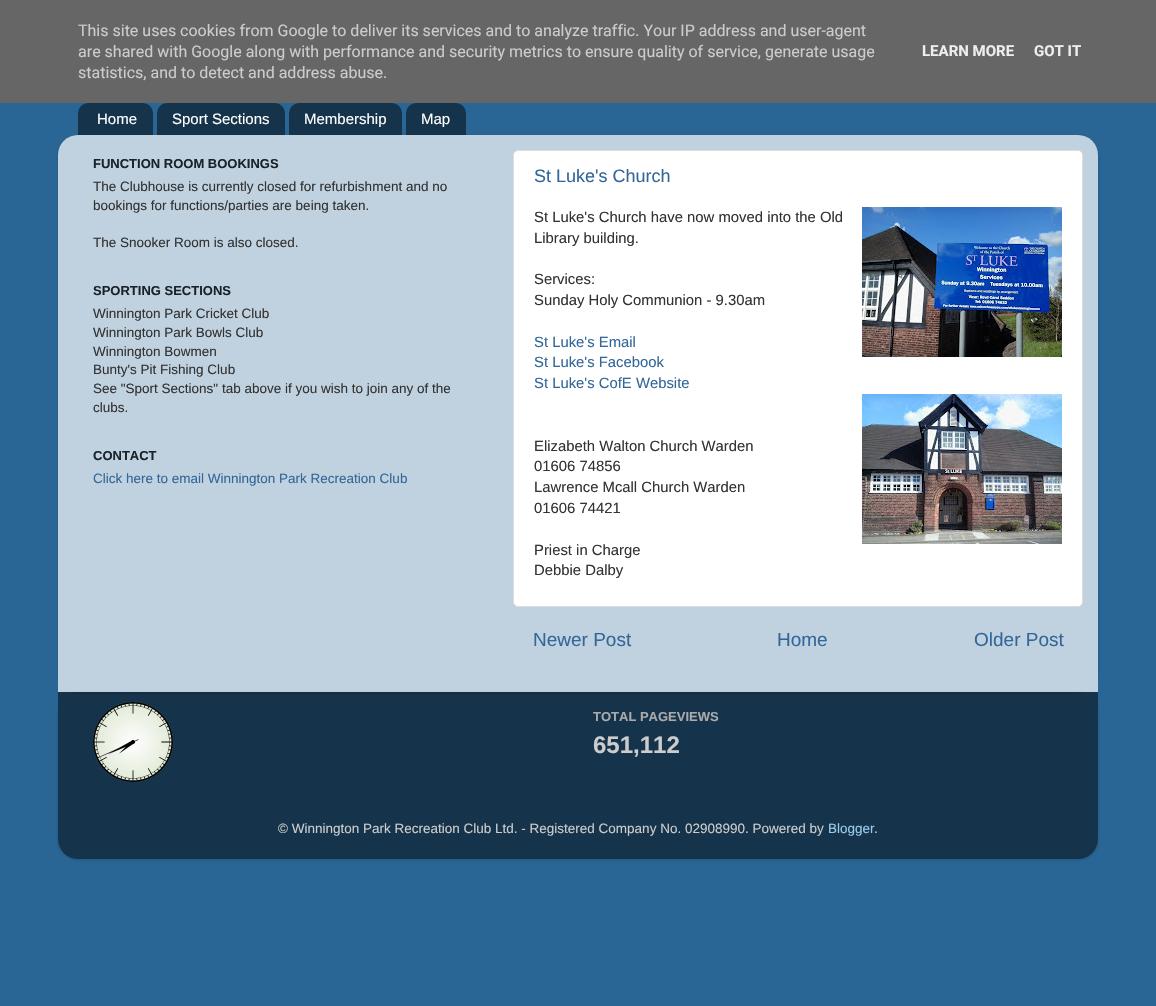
#include "include/core/SkBlurTypes.h"
#include "include/core/SkCanvas.h"
#include "include/core/SkData.h"
#include "include/core/SkFont.h"
#include "include/core/SkFontMgr.h"
#include "include/core/SkImage.h"
#include "include/core/SkMaskFilter.h"
#include "include/core/SkPaint.h"
#include "include/core/SkPathBuilder.h"
#include "include/core/SkTextBlob.h"
#include "include/effects/SkDashPathEffect.h"
#include "include/effects/SkGradientShader.h"
#include "include/utils/SkParsePath.h"

extern sk_sp<SkFontMgr> fontMgr;

void draw(SkCanvas* canvas) {
    SkPaint p;
    p.setAntiAlias(true);
    auto font = [&](const char* family, int weight, float size, bool italic = false) {
        SkFontStyle style(weight, SkFontStyle::kNormal_Width,
            italic ? SkFontStyle::kItalic_Slant : SkFontStyle::kUpright_Slant);
        SkFont result(fontMgr->matchFamilyStyle(family, style), size);
        result.setSubpixel(true);
        return result;
    };
    auto drawPhoto = [&](const char* path, float l, float t, float r, float b) {
        auto image = SkImages::DeferredFromEncodedData(SkData::MakeFromFileName(path));
        canvas->drawImageRect(image, SkRect::MakeLTRB(l, t, r, b), SkSamplingOptions());
    };
    canvas->clear(0xFF296695);
    p.setColor(0xFF666666);
    canvas->drawRect(SkRect::MakeLTRB(0, 0, 1156, 103), p);
    auto font1 = font("Roboto", 400, 16);
    p.setColor(0xFFCCCCCC);
    {
        const struct { const char* s; float x, y; } items[] = {
            {"This site uses cookies from Google to deliver its services and to analyze traffic. Your IP address and user-agent", 78, 36},
            {"are shared with Google along with performance and security metrics to ensure quality of service, generate usage", 78, 57},
            {"statistics, and to detect and address abuse.", 78, 78},
        };
        for (auto [s, x, y] : items) {
            canvas->drawString(s, x, y, font1, p);
        }
    }
    auto font2 = font("Roboto", 700, 15);
    p.setColor(0xFFEEEEEE);
    canvas->drawString("LEARN MORE", 922, 56, font2, p);
    canvas->drawString("GOT IT", 1034, 56, font2, p);
    drawPhoto("media/1.png", 78, 103, 153, 135);
    auto font3 = font("Liberation Sans", 400, 15);
    p.setColor(0xFFFFFFFF);
    canvas->drawString("Home", 97, 124, font3, p);
    drawPhoto("media/2.png", 157, 103, 285, 135);
    canvas->drawString("Sport Sections", 172, 124, font3, p);
    drawPhoto("media/3.png", 289, 103, 402, 135);
    canvas->drawString("Membership", 304, 124, font3, p);
    drawPhoto("media/4.png", 406, 103, 466, 135);
    canvas->drawString("Map", 421, 124, font3, p);
    canvas->save();
    canvas->clipPath(SkPathBuilder(SkPathFillType::kEvenOdd).moveTo(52, 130).lineTo(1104, 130).lineTo(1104, 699).lineTo(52, 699).close().moveTo(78, 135).lineTo(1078, 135).cubicTo(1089, 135, 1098, 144, 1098, 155).lineTo(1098, 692).lineTo(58, 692).lineTo(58, 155).cubicTo(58, 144, 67, 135, 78, 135).close().detach(), true);
    p.setColor(0x26000000);
    p.setMaskFilter(SkMaskFilter::MakeBlur(kNormal_SkBlurStyle, 1.5f));
    canvas->drawRoundRect(SkRect::MakeLTRB(58, 136, 1098, 693), 20, 20, p);
    p.setMaskFilter(nullptr);
    canvas->restore();
    drawPhoto("media/5.png", 58, 135, 1098, 692);
    auto font4 = font("Liberation Sans", 700, 13);
    p.setColor(0xFF1A222A);
    canvas->drawString("FUNCTION ROOM BOOKINGS", 93, 168, font4, p);
    auto font5 = font("Liberation Sans", 400, 13.5f);
    p.setColor(0xFF333333);
    {
        const struct { const char* s; float x, y; } items[] = {
            {"The Clubhouse is currently closed for refurbishment and no", 93, 191},
            {"bookings for functions/parties are being taken.", 93, 210},
            {"The Snooker Room is also closed.", 93, 247},
        };
        for (auto [s, x, y] : items) {
            canvas->drawString(s, x, y, font5, p);
        }
    }
    p.setColor(0xFF1A222A);
    canvas->drawString("SPORTING SECTIONS", 93, 295, font4, p);
    p.setColor(0xFF333333);
    {
        const struct { const char* s; float x, y; } items[] = {
            {"Winnington Park Cricket Club", 93, 318},
            {"Winnington Park Bowls Club", 93, 337},
            {"Winnington Bowmen", 93, 356},
            {"Bunty's Pit Fishing Club", 93, 374},
            {"See \"Sport Sections\" tab above if you wish to join any of the", 93, 393},
            {"clubs.", 93, 412},
        };
        for (auto [s, x, y] : items) {
            canvas->drawString(s, x, y, font5, p);
        }
    }
    p.setColor(0xFF1A222A);
    canvas->drawString("CONTACT", 93, 460, font4, p);
    p.setColor(0xFF336699);
    canvas->drawString("Click here to email Winnington Park Recreation Club", 93, 483, font5, p);
    p.setColor(0xFFFFFFFF);
    canvas->drawRoundRect(SkRect::MakeLTRB(513.5f, 150.5f, 1082.5f, 606.5f), 4.5f, 4.5f, p);
    p.setStyle(SkPaint::kStroke_Style);
    p.setStrokeWidth(1);
    p.setColor(0xFFDDDDDD);
    canvas->drawRoundRect(SkRect::MakeLTRB(513.5f, 150.5f, 1082.5f, 606.5f), 4.5f, 4.5f, p);
    auto font6 = font("Liberation Sans", 400, 18);
    p.setStyle(SkPaint::kFill_Style);
    p.setColor(0xFF336699);
    canvas->drawString("St Luke's Church", 534, 182, font6, p);
    auto font7 = font("Liberation Sans", 400, 14.85f);
    p.setColor(0xFF333333);
    canvas->drawString("St Luke's Church have now moved into the Old", 534, 222, font7, p);
    drawPhoto("media/6.png", 862, 207, 1062, 357);
    {
        const struct { const char* s; float x, y; } items[] = {
            {"Library building.", 534, 243},
            {"Services:", 534, 284},
            {"Sunday Holy Communion - 9.30am", 534, 305},
        };
        for (auto [s, x, y] : items) {
            canvas->drawString(s, x, y, font7, p);
        }
    }
    p.setColor(0xFF336699);
    {
        const struct { const char* s; float x, y; } items[] = {
            {"St Luke's Email", 534, 347},
            {"St Luke's Facebook", 534, 367},
            {"St Luke's CofE Website", 534, 388},
        };
        for (auto [s, x, y] : items) {
            canvas->drawString(s, x, y, font7, p);
        }
    }
    p.setColor(0xFF333333);
    {
        const struct { const char* s; float x, y; } items[] = {
            {"Elizabeth Walton Church Warden", 534, 451},
            {"01606 74856", 534, 471},
            {"Lawrence Mcall Church Warden", 534, 492},
        };
        for (auto [s, x, y] : items) {
            canvas->drawString(s, x, y, font7, p);
        }
    }
    drawPhoto("media/7.png", 862, 394, 1062, 544);
    {
        const struct { const char* s; float x, y; } items[] = {
            {"01606 74421", 534, 513},
            {"Priest in Charge", 534, 555},
            {"Debbie Dalby", 534, 575},
        };
        for (auto [s, x, y] : items) {
            canvas->drawString(s, x, y, font7, p);
        }
    }
    auto font8 = font("Liberation Sans", 400, 19);
    p.setColor(0xFF336699);
    {
        const struct { const char* s; float x, y; } items[] = {
            {"Newer Post", 533, 646},
            {"Home", 777, 646},
            {"Older Post", 974, 646},
        };
        for (auto [s, x, y] : items) {
            canvas->drawString(s, x, y, font8, p);
        }
    }
    canvas->save();
    canvas->clipPath(SkPathBuilder(SkPathFillType::kEvenOdd).moveTo(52, 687).lineTo(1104, 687).lineTo(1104, 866).lineTo(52, 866).close().moveTo(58, 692).lineTo(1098, 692).lineTo(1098, 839).cubicTo(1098, 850, 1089, 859, 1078, 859).lineTo(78, 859).cubicTo(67, 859, 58, 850, 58, 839).close().detach(), true);
    p.setColor(0x26000000);
    p.setMaskFilter(SkMaskFilter::MakeBlur(kNormal_SkBlurStyle, 1.5f));
    canvas->drawRoundRect(SkRect::MakeLTRB(58, 693, 1098, 860), 20, 20, p);
    p.setMaskFilter(nullptr);
    canvas->restore();
    drawPhoto("media/8.png", 58, 692, 1098, 859);
    drawPhoto("media/9.png", 93, 702, 173, 782);
    p.setColor(0xFFAAAAAA);
    canvas->drawString("TOTAL PAGEVIEWS", 593, 721, font4, p);
    auto font9 = font("Liberation Sans", 700, 24);
    p.setColor(0xFFCCCCCC);
    canvas->drawString("651,112", 593, 753, font9, p);
    canvas->drawString("© Winnington Park Recreation Club Ltd. - Registered Company No. 02908990. Powered by", 278, 833, font5, p);
    p.setColor(0xFF99CCEE);
    canvas->drawString("Blogger", 828, 833, font5, p);
    p.setColor(0xFFCCCCCC);
    canvas->drawString(".", 874, 833, font5, p);
}
